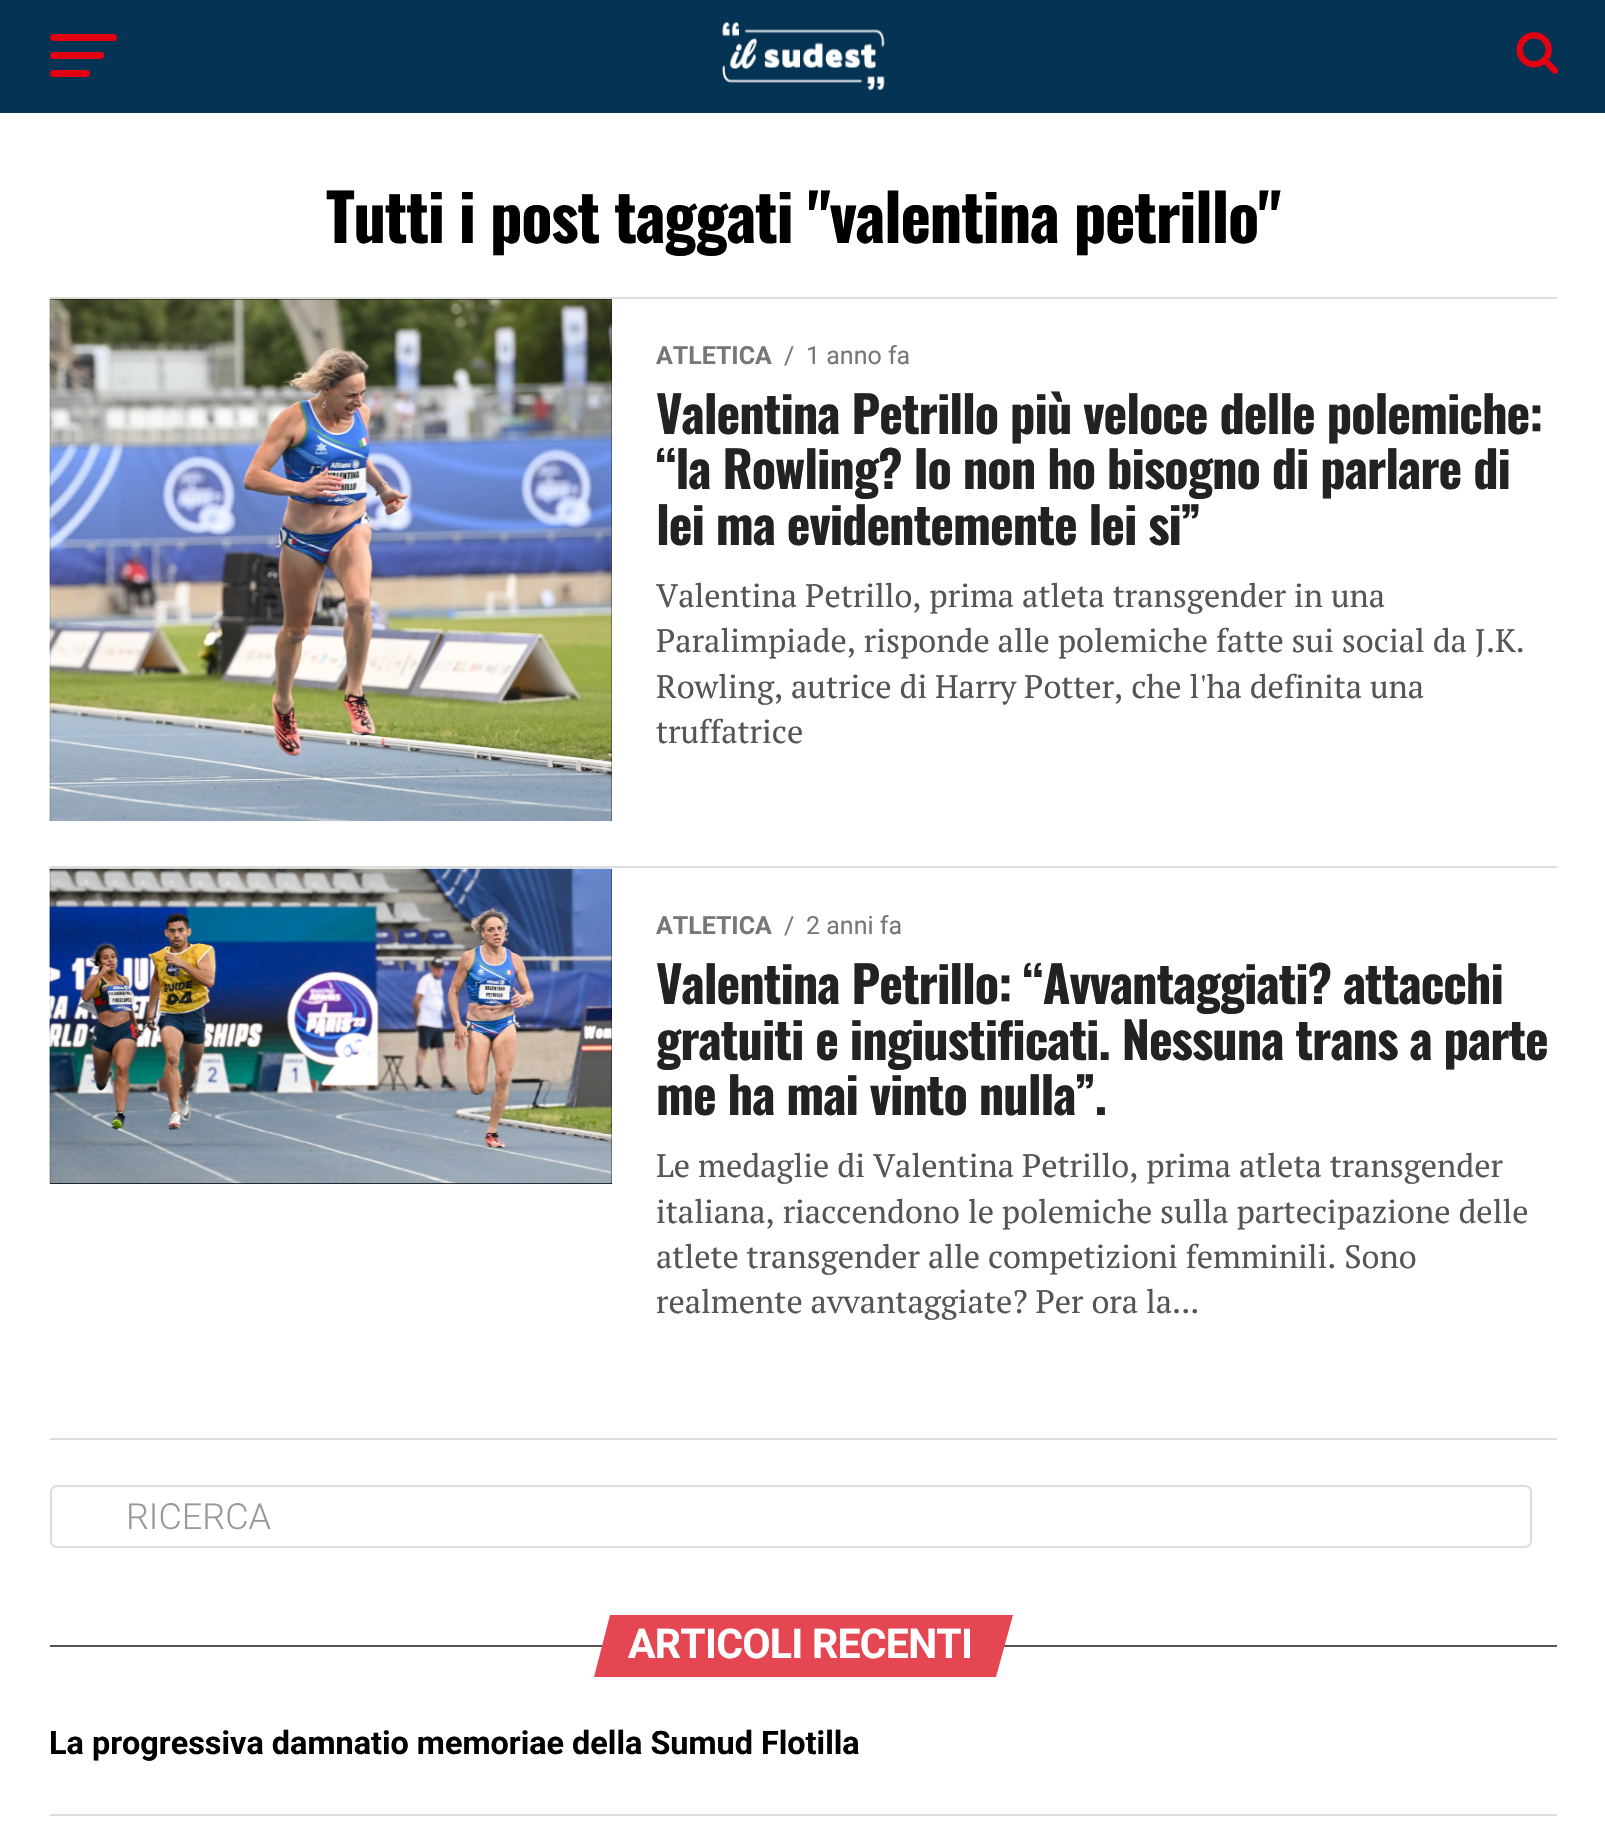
#include "include/core/SkBlurTypes.h"
#include "include/core/SkCanvas.h"
#include "include/core/SkData.h"
#include "include/core/SkFont.h"
#include "include/core/SkFontMgr.h"
#include "include/core/SkImage.h"
#include "include/core/SkMaskFilter.h"
#include "include/core/SkPaint.h"
#include "include/core/SkPathBuilder.h"
#include "include/core/SkTextBlob.h"
#include "include/effects/SkDashPathEffect.h"
#include "include/effects/SkGradientShader.h"
#include "include/utils/SkParsePath.h"

extern sk_sp<SkFontMgr> fontMgr;

void draw(SkCanvas* canvas) {
    SkPaint p;
    p.setAntiAlias(true);
    auto font = [&](const char* family, int weight, float size, bool italic = false) {
        SkFontStyle style(weight, SkFontStyle::kNormal_Width,
            italic ? SkFontStyle::kItalic_Slant : SkFontStyle::kUpright_Slant);
        SkFont result(fontMgr->matchFamilyStyle(family, style), size);
        result.setSubpixel(true);
        return result;
    };
    auto drawTracked = [&](const char* s, float x, float y, const SkFont& font, const SkPaint& ink, float letter, float word) {
        std::vector<SkGlyphID> glyphs(font.countText(s, strlen(s), SkTextEncoding::kUTF8));
        std::vector<float> xs(glyphs.size());
        font.textToGlyphs(s, strlen(s), SkTextEncoding::kUTF8, glyphs);
        font.getXPos(glyphs, xs, x);
        float extra = 0;
        for (size_t i = 0; i < glyphs.size(); i++) {
            xs[i] += extra;
            extra += letter + word * (glyphs[i] == font.unicharToGlyph(' '));
        }
        canvas->drawTextBlob(SkTextBlob::MakeFromPosHGlyphs(glyphs, xs, y, font), 0, 0, ink);
    };
    auto drawPhoto = [&](const char* path, float l, float t, float r, float b) {
        auto image = SkImages::DeferredFromEncodedData(SkData::MakeFromFileName(path));
        canvas->drawImageRect(image, SkRect::MakeLTRB(l, t, r, b), SkSamplingOptions());
    };
    canvas->clear(0xFFFFFFFF);
    p.setColor(0xFF043353);
    canvas->drawRect(SkRect::MakeLTRB(0, 0, 1605, 113), p);
    p.setColor(0xFFE20012);
    canvas->drawRoundRect(SkRect::MakeLTRB(50, 34, 117, 41), 3.5f, 3.5f, p);
    canvas->drawRoundRect(SkRect::MakeLTRB(50, 52, 104, 59), 3.5f, 3.5f, p);
    canvas->drawRoundRect(SkRect::MakeLTRB(50, 70, 90, 77), 3.5f, 3.5f, p);
    drawPhoto("media/1.png", 722, 22, 885, 90);
    drawPhoto("media/2.png", 1516, 32, 1559, 74);
    auto font1 = font("Oswald", 700, 64.75f);
    p.setColor(0xFF000000);
    drawTracked("Tutti i post taggati \"valentina petrillo\"", 326, 243, font1, p, -1.3f, 0);
    p.setColor(0xFFDDDDDD);
    canvas->drawRect(SkRect::MakeLTRB(50, 297, 1557, 299), p);
    p.setColor(0xFF000000);
    canvas->drawRect(SkRect::MakeLTRB(50, 299, 612, 821), p);
    drawPhoto("media/3.png", 49, 299, 612, 822);
    auto font2 = font("Roboto", 700, 25);
    p.setColor(0xFF777777);
    canvas->drawString("ATLETICA", 656, 364, font2, p);
    auto font3 = font("Roboto", 400, 25);
    canvas->drawString("/", 784, 364, font3, p);
    canvas->drawString("1 anno fa", 806, 364, font3, p);
    auto font4 = font("Oswald", 700, 50.4f);
    p.setColor(0xFF222222);
    {
        const struct { const char* s; float x, y; } items[] = {
            {"Valentina Petrillo più veloce delle polemiche:", 656, 434},
            {"“la Rowling? Io non ho bisogno di parlare di", 656, 489},
            {"lei ma evidentemente lei si”", 656, 545},
        };
        for (auto [s, x, y] : items) {
            drawTracked(s, x, y, font4, p, -1, 0);
        }
    }
    auto font5 = font("PT Serif", 400, 32.4f);
    p.setColor(0xFF555555);
    {
        const struct { const char* s; float x, y; } items[] = {
            {"Valentina Petrillo, prima atleta transgender in una", 656, 607},
            {"Paralimpiade, risponde alle polemiche fatte sui social da J.K.", 656, 652},
            {"Rowling, autrice di Harry Potter, che l'ha definita una", 656, 698},
            {"truffatrice", 656, 743},
        };
        for (auto [s, x, y] : items) {
            canvas->drawString(s, x, y, font5, p);
        }
    }
    p.setColor(0xFFDDDDDD);
    canvas->drawRect(SkRect::MakeLTRB(50, 866, 1557, 868), p);
    p.setColor(0xFF000000);
    canvas->drawRect(SkRect::MakeLTRB(50, 869, 612, 1184), p);
    drawPhoto("media/4.png", 49, 868, 612, 1184);
    p.setColor(0xFF777777);
    canvas->drawString("ATLETICA", 656, 934, font2, p);
    canvas->drawString("/", 784, 934, font3, p);
    canvas->drawString("2 anni fa", 806, 934, font3, p);
    p.setColor(0xFF222222);
    {
        const struct { const char* s; float x, y; } items[] = {
            {"Valentina Petrillo: “Avvantaggiati? attacchi", 656, 1004},
            {"gratuiti e ingiustificati. Nessuna trans a parte", 656, 1060},
            {"me ha mai vinto nulla”.", 656, 1115},
        };
        for (auto [s, x, y] : items) {
            drawTracked(s, x, y, font4, p, -1, 0);
        }
    }
    p.setColor(0xFF555555);
    {
        const struct { const char* s; float x, y; } items[] = {
            {"Le medaglie di Valentina Petrillo, prima atleta transgender", 656, 1177},
            {"italiana, riaccendono le polemiche sulla partecipazione delle", 656, 1223},
            {"atlete transgender alle competizioni femminili. Sono", 656, 1268},
            {"realmente avvantaggiate? Per ora la...", 656, 1313},
        };
        for (auto [s, x, y] : items) {
            canvas->drawString(s, x, y, font5, p);
        }
    }
    p.setColor(0xFFDDDDDD);
    canvas->drawRect(SkRect::MakeLTRB(50, 1438, 1557, 1440), p);
    p.setStyle(SkPaint::kStroke_Style);
    p.setStrokeWidth(2);
    canvas->drawRoundRect(SkRect::MakeLTRB(51, 1486, 1531, 1547), 6, 6, p);
    auto font6 = font("Roboto", 300, 36);
    p.setStyle(SkPaint::kFill_Style);
    p.setColor(0xFF999999);
    canvas->drawString("RICERCA", 126, 1529, font6, p);
    p.setColor(0xFF555555);
    canvas->drawRect(SkRect::MakeLTRB(50, 1645, 1557, 1647), p);
    p.setColor(0xFFE44652);
    canvas->drawPath(SkPathBuilder().moveTo(610, 1615).lineTo(1013, 1615).lineTo(996, 1677).lineTo(594, 1677).close().detach(), p);
    auto font7 = font("Roboto", 700, 41);
    p.setColor(0xFFFFFFFF);
    drawTracked("ARTICOLI RECENTI", 628, 1658, font7, p, -0.75f, 0);
    auto font8 = font("Roboto", 700, 32.4f);
    p.setColor(0xFF000000);
    canvas->drawString("La progressiva damnatio memoriae della Sumud Flotilla", 49, 1754, font8, p);
    p.setColor(0xFFDDDDDD);
    canvas->drawRect(SkRect::MakeLTRB(50, 1814, 1557, 1816), p);
}
